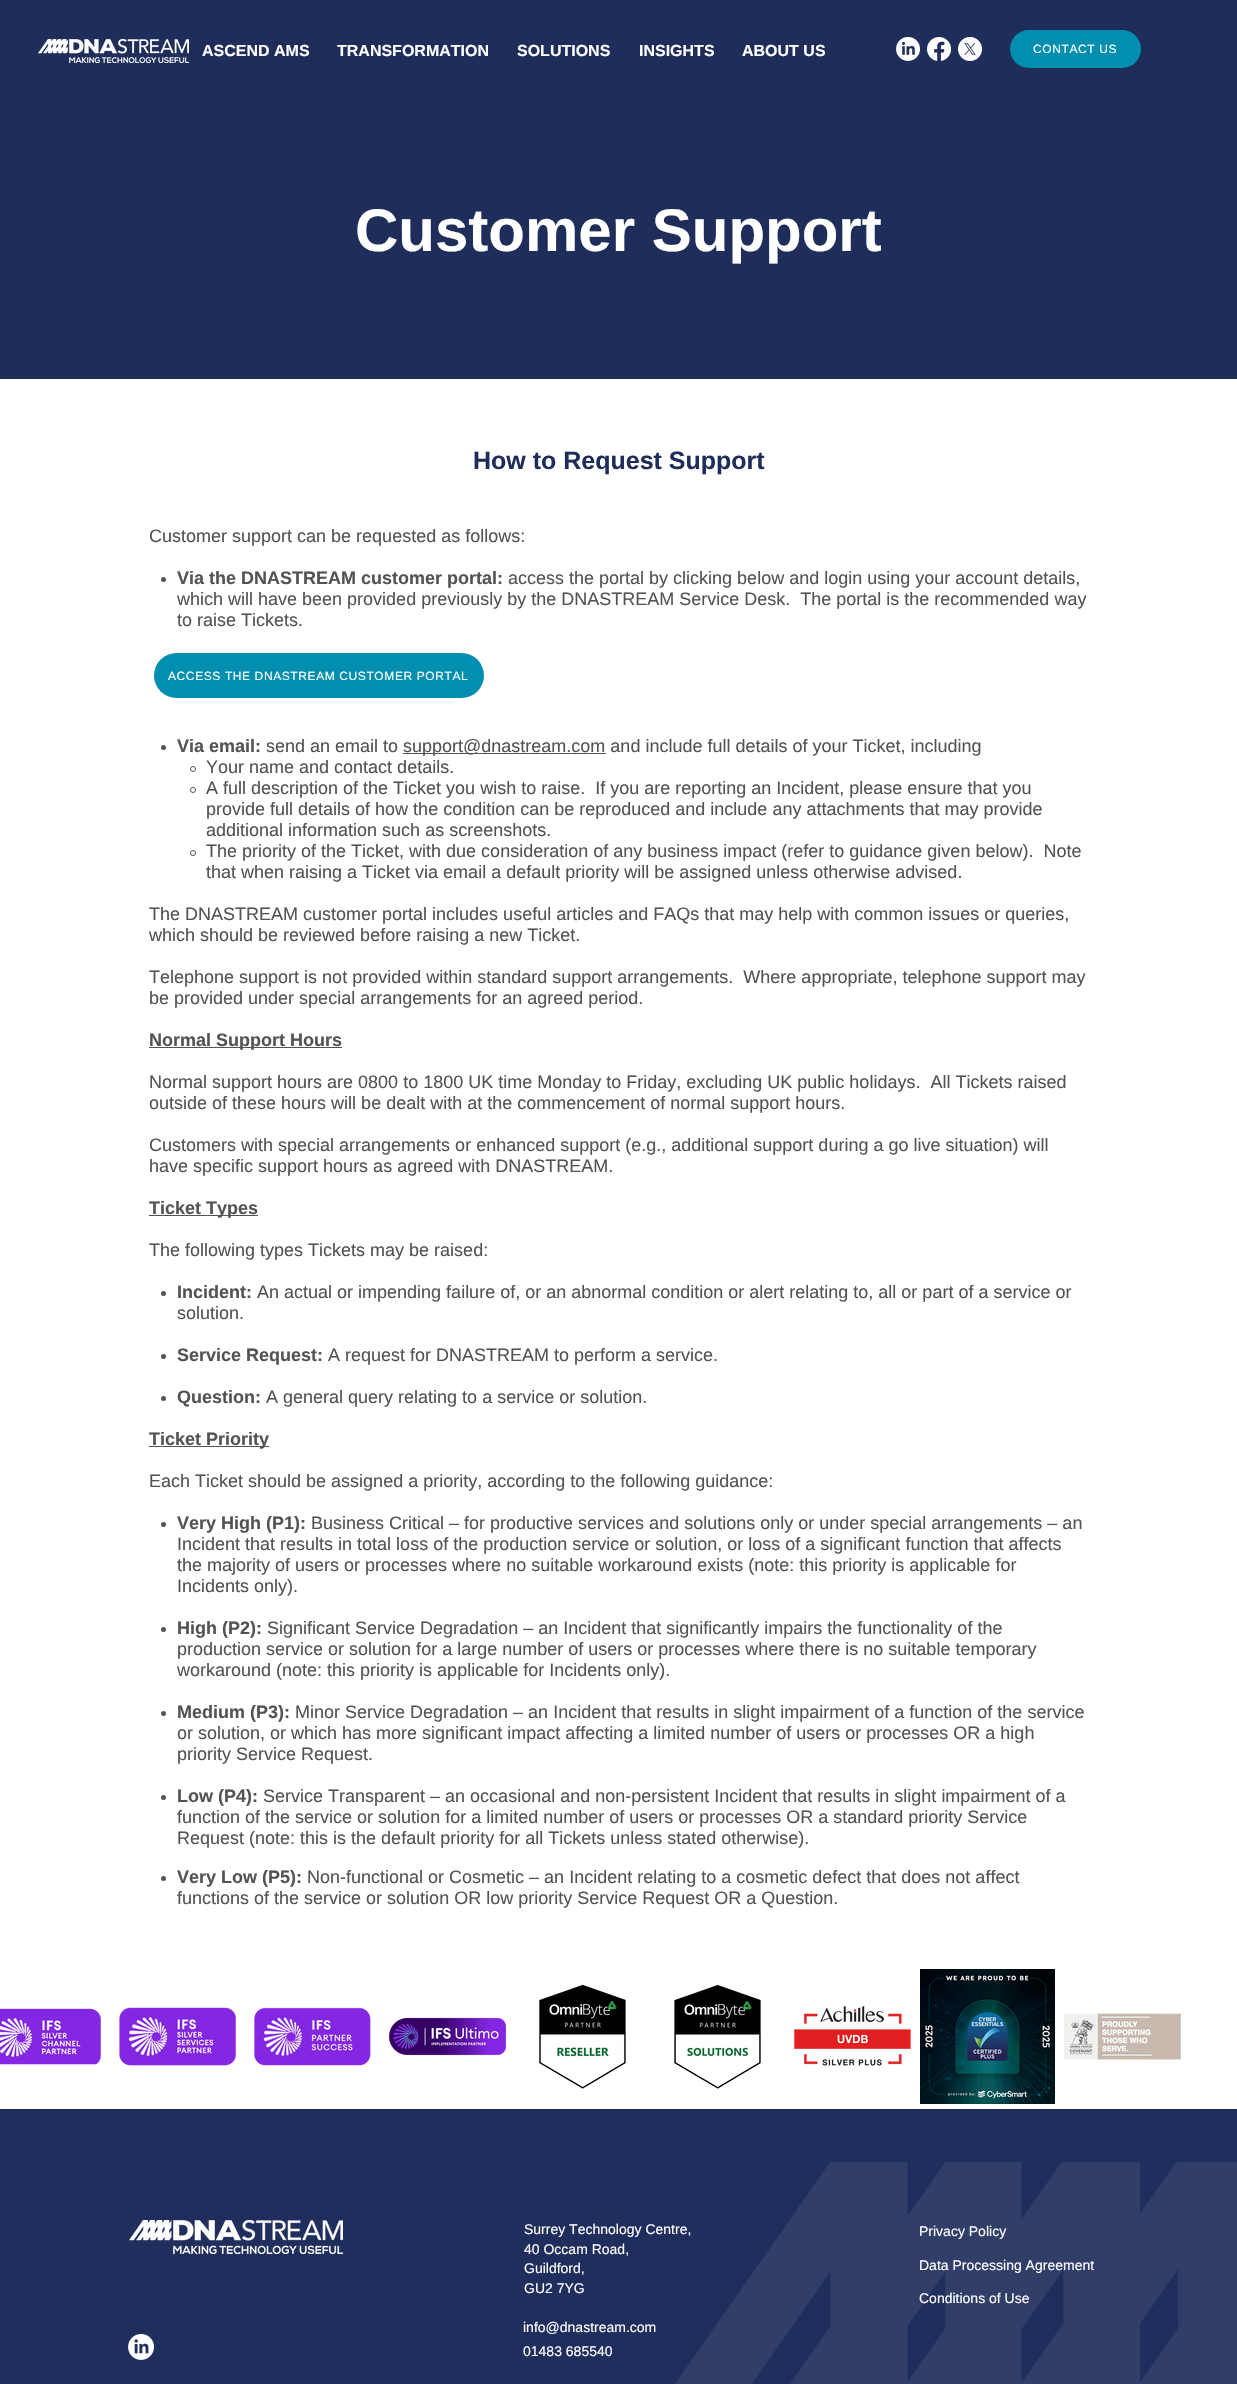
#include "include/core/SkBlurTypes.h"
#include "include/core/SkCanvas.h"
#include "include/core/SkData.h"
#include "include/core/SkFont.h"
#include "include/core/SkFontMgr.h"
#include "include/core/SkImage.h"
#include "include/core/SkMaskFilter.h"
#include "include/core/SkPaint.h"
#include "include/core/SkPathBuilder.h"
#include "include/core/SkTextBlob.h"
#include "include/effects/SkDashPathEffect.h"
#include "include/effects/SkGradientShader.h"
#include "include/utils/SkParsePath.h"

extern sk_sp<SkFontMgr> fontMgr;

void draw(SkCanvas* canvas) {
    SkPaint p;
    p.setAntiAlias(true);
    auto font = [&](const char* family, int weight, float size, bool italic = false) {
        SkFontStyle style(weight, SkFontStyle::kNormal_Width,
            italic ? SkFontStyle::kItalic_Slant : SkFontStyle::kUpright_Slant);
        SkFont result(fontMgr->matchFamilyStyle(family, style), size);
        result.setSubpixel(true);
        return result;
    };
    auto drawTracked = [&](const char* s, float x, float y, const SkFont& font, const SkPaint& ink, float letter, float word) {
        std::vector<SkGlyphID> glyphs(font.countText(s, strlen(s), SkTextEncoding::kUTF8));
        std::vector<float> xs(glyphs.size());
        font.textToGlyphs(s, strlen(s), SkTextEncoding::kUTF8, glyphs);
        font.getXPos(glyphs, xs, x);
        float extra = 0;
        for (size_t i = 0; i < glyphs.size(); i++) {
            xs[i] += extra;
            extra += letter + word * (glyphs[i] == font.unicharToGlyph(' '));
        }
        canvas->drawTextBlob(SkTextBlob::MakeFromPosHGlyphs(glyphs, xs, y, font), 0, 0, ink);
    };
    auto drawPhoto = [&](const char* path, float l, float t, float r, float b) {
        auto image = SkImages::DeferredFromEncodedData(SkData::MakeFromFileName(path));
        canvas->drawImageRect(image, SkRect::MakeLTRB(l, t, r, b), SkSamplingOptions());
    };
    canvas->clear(0xFFFFFFFF);
    p.setColor(0xFF1E2D5A);
    canvas->drawRect(SkRect::MakeLTRB(0, 0, 1237, 379), p);
    drawPhoto("media/1.png", 38, 39, 189, 63);
    auto font1 = font("Liberation Sans", 700, 16);
    p.setColor(0xFFFFFFFF);
    {
        const struct { const char* s; float x, y; } items[] = {
            {"ASCEND AMS", 202, 56},
            {"TRANSFORMATION", 337, 56},
            {"SOLUTIONS", 517, 56},
            {"INSIGHTS", 639, 56},
            {"ABOUT US", 742, 56},
        };
        for (auto [s, x, y] : items) {
            canvas->drawString(s, x, y, font1, p);
        }
    }
    drawPhoto("media/2.png", 896, 37, 920, 61);
    drawPhoto("media/3.png", 927, 37, 951, 61);
    drawPhoto("media/4.png", 958, 37, 982, 61);
    p.setColor(0xFF028FAF);
    canvas->drawRoundRect(SkRect::MakeLTRB(1010, 30, 1141, 68), 19, 19, p);
    auto font2 = font("Liberation Sans", 400, 12);
    p.setColor(0xFFFFFFFF);
    drawTracked("CONTACT US", 1033, 53, font2, p, 0.6f, 0);
    auto font3 = font("Liberation Sans", 700, 60);
    canvas->drawString("Customer Support", 355, 251, font3, p);
    auto font4 = font("Liberation Sans", 700, 25);
    p.setColor(0xFF1E2D5A);
    canvas->drawString("How to Request Support", 473, 469, font4, p);
    auto font5 = font("Liberation Sans", 400, 18);
    p.setColor(0xFF535353);
    canvas->drawString("Customer support can be requested as follows:", 149, 542, font5, p);
    canvas->drawCircle(163.5f, 579.5f, 2.5f, p);
    auto font6 = font("Liberation Sans", 700, 18);
    canvas->drawString("Via the DNASTREAM customer portal:", 177, 584, font6, p);
    {
        const struct { const char* s; float x, y; } items[] = {
            {"access the portal by clicking below and login using your account details,", 508, 584},
            {"which will have been provided previously by the DNASTREAM Service Desk.  The portal is the recommended way", 177, 605},
            {"to raise Tickets.", 177, 626},
        };
        for (auto [s, x, y] : items) {
            canvas->drawString(s, x, y, font5, p);
        }
    }
    canvas->drawCircle(163.5f, 747.5f, 2.5f, p);
    canvas->drawString("Via email:", 177, 752, font6, p);
    canvas->drawString("send an email to", 266, 752, font5, p);
    canvas->drawRect(SkRect::MakeLTRB(403, 753, 606, 754), p);
    canvas->drawString("support@dnastream.com and include full details of your Ticket, including", 403, 752, font5, p);
    p.setStyle(SkPaint::kStroke_Style);
    p.setStrokeWidth(1);
    canvas->drawCircle(193, 769, 2.5f, p);
    p.setStyle(SkPaint::kFill_Style);
    canvas->drawString("Your name and contact details.", 206, 773, font5, p);
    p.setStyle(SkPaint::kStroke_Style);
    canvas->drawCircle(193, 790, 2.5f, p);
    p.setStyle(SkPaint::kFill_Style);
    {
        const struct { const char* s; float x, y; } items[] = {
            {"A full description of the Ticket you wish to raise.  If you are reporting an Incident, please ensure that you", 206, 794},
            {"provide full details of how the condition can be reproduced and include any attachments that may provide", 206, 815},
            {"additional information such as screenshots.", 206, 836},
        };
        for (auto [s, x, y] : items) {
            canvas->drawString(s, x, y, font5, p);
        }
    }
    p.setStyle(SkPaint::kStroke_Style);
    canvas->drawCircle(193, 853, 2.5f, p);
    p.setStyle(SkPaint::kFill_Style);
    {
        const struct { const char* s; float x, y; } items[] = {
            {"The priority of the Ticket, with due consideration of any business impact (refer to guidance given below).  Note", 206, 857},
            {"that when raising a Ticket via email a default priority will be assigned unless otherwise advised.", 206, 878},
            {"The DNASTREAM customer portal includes useful articles and FAQs that may help with common issues or queries,", 149, 920},
            {"which should be reviewed before raising a new Ticket.", 149, 941},
            {"Telephone support is not provided within standard support arrangements.  Where appropriate, telephone support may", 149, 983},
            {"be provided under special arrangements for an agreed period.", 149, 1004},
        };
        for (auto [s, x, y] : items) {
            canvas->drawString(s, x, y, font5, p);
        }
    }
    canvas->drawRect(SkRect::MakeLTRB(149, 1047, 342, 1048), p);
    canvas->drawString("Normal Support Hours", 149, 1046, font6, p);
    {
        const struct { const char* s; float x, y; } items[] = {
            {"Normal support hours are 0800 to 1800 UK time Monday to Friday, excluding UK public holidays.  All Tickets raised", 149, 1088},
            {"outside of these hours will be dealt with at the commencement of normal support hours.", 149, 1109},
            {"Customers with special arrangements or enhanced support (e.g., additional support during a go live situation) will", 149, 1151},
            {"have specific support hours as agreed with DNASTREAM.", 149, 1172},
        };
        for (auto [s, x, y] : items) {
            canvas->drawString(s, x, y, font5, p);
        }
    }
    canvas->drawRect(SkRect::MakeLTRB(149, 1215, 258, 1216), p);
    canvas->drawString("Ticket Types", 149, 1214, font6, p);
    canvas->drawString("The following types Tickets may be raised:", 149, 1256, font5, p);
    canvas->drawCircle(163.5f, 1293.5f, 2.5f, p);
    canvas->drawString("Incident:", 177, 1298, font6, p);
    canvas->drawString("An actual or impending failure of, or an abnormal condition or alert relating to, all or part of a service or", 257, 1298, font5, p);
    canvas->drawString("solution.", 177, 1319, font5, p);
    canvas->drawCircle(163.5f, 1356.5f, 2.5f, p);
    canvas->drawString("Service Request:", 177, 1361, font6, p);
    canvas->drawString("A request for DNASTREAM to perform a service.", 328, 1361, font5, p);
    canvas->drawCircle(163.5f, 1398.5f, 2.5f, p);
    canvas->drawString("Question:", 177, 1403, font6, p);
    canvas->drawString("A general query relating to a service or solution.", 266, 1403, font5, p);
    canvas->drawRect(SkRect::MakeLTRB(149, 1446, 269, 1447), p);
    canvas->drawString("Ticket Priority", 149, 1445, font6, p);
    canvas->drawString("Each Ticket should be assigned a priority, according to the following guidance:", 149, 1487, font5, p);
    canvas->drawCircle(163.5f, 1524.5f, 2.5f, p);
    canvas->drawString("Very High (P1):", 177, 1529, font6, p);
    {
        const struct { const char* s; float x, y; } items[] = {
            {"Business Critical – for productive services and solutions only or under special arrangements – an", 311, 1529},
            {"Incident that results in total loss of the production service or solution, or loss of a significant function that affects", 177, 1550},
            {"the majority of users or processes where no suitable workaround exists (note: this priority is applicable for", 177, 1571},
            {"Incidents only).", 177, 1592},
        };
        for (auto [s, x, y] : items) {
            canvas->drawString(s, x, y, font5, p);
        }
    }
    canvas->drawCircle(163.5f, 1629.5f, 2.5f, p);
    canvas->drawString("High (P2):", 177, 1634, font6, p);
    {
        const struct { const char* s; float x, y; } items[] = {
            {"Significant Service Degradation – an Incident that significantly impairs the functionality of the", 267, 1634},
            {"production service or solution for a large number of users or processes where there is no suitable temporary", 177, 1655},
            {"workaround (note: this priority is applicable for Incidents only).", 177, 1676},
        };
        for (auto [s, x, y] : items) {
            canvas->drawString(s, x, y, font5, p);
        }
    }
    canvas->drawCircle(163.5f, 1713.5f, 2.5f, p);
    canvas->drawString("Medium (P3):", 177, 1718, font6, p);
    {
        const struct { const char* s; float x, y; } items[] = {
            {"Minor Service Degradation – an Incident that results in slight impairment of a function of the service", 295, 1718},
            {"or solution, or which has more significant impact affecting a limited number of users or processes OR a high", 177, 1739},
            {"priority Service Request.", 177, 1760},
        };
        for (auto [s, x, y] : items) {
            canvas->drawString(s, x, y, font5, p);
        }
    }
    canvas->drawCircle(163.5f, 1797.5f, 2.5f, p);
    canvas->drawString("Low (P4):", 177, 1802, font6, p);
    {
        const struct { const char* s; float x, y; } items[] = {
            {"Service Transparent – an occasional and non-persistent Incident that results in slight impairment of a", 263, 1802},
            {"function of the service or solution for a limited number of users or processes OR a standard priority Service", 177, 1823},
            {"Request (note: this is the default priority for all Tickets unless stated otherwise).", 177, 1844},
        };
        for (auto [s, x, y] : items) {
            canvas->drawString(s, x, y, font5, p);
        }
    }
    canvas->drawCircle(163.5f, 1878.5f, 2.5f, p);
    canvas->drawString("Very Low (P5):", 177, 1883, font6, p);
    canvas->drawString("Non-functional or Cosmetic – an Incident relating to a cosmetic defect that does not affect", 307, 1883, font5, p);
    canvas->drawString("functions of the service or solution OR low priority Service Request OR a Question.", 177, 1904, font5, p);
    p.setColor(0xFF028FAF);
    canvas->drawRoundRect(SkRect::MakeLTRB(154, 653, 484, 698), 22.5f, 22.5f, p);
    p.setColor(0xFFFFFFFF);
    drawTracked("ACCESS THE DNASTREAM CUSTOMER PORTAL", 168, 680, font2, p, 0.6f, 0);
    p.setColor(0xFF1F2E5C);
    canvas->drawRect(SkRect::MakeLTRB(0, 2109, 1237, 2384), p);
    drawPhoto("media/5.png", 0, 2008, 101, 2065);
    drawPhoto("media/6.png", 119, 2007, 236, 2066);
    drawPhoto("media/7.png", 254, 2007, 371, 2066);
    drawPhoto("media/8.png", 388, 2017, 507, 2056);
    drawPhoto("media/9.png", 539, 1983, 626, 2090);
    drawPhoto("media/10.png", 674, 1984, 761, 2089);
    drawPhoto("media/11.png", 794, 2006, 911, 2066);
    drawPhoto("media/12.png", 920, 1969, 1055, 2104);
    drawPhoto("media/13.png", 1064, 2013, 1181, 2060);
    drawPhoto("media/14.png", 675, 2162, 1237, 2384);
    drawPhoto("media/15.png", 129, 2220, 343, 2254);
    auto font7 = font("Liberation Sans", 400, 14);
    p.setColor(0xFFFFFFFF);
    {
        const struct { const char* s; float x, y; } items[] = {
            {"Surrey Technology Centre,", 524, 2234},
            {"40 Occam Road,", 524, 2254},
            {"Guildford,", 524, 2273},
            {"GU2 7YG", 524, 2293},
            {"Privacy Policy", 919, 2236},
            {"Data Processing Agreement", 919, 2270},
            {"Conditions of Use", 919, 2303},
        };
        for (auto [s, x, y] : items) {
            canvas->drawString(s, x, y, font7, p);
        }
    }
    drawPhoto("media/16.png", 128, 2334, 154, 2360);
    canvas->drawString("info@dnastream.com", 523, 2332, font7, p);
    canvas->drawString("01483 685540", 523, 2356, font7, p);
}
